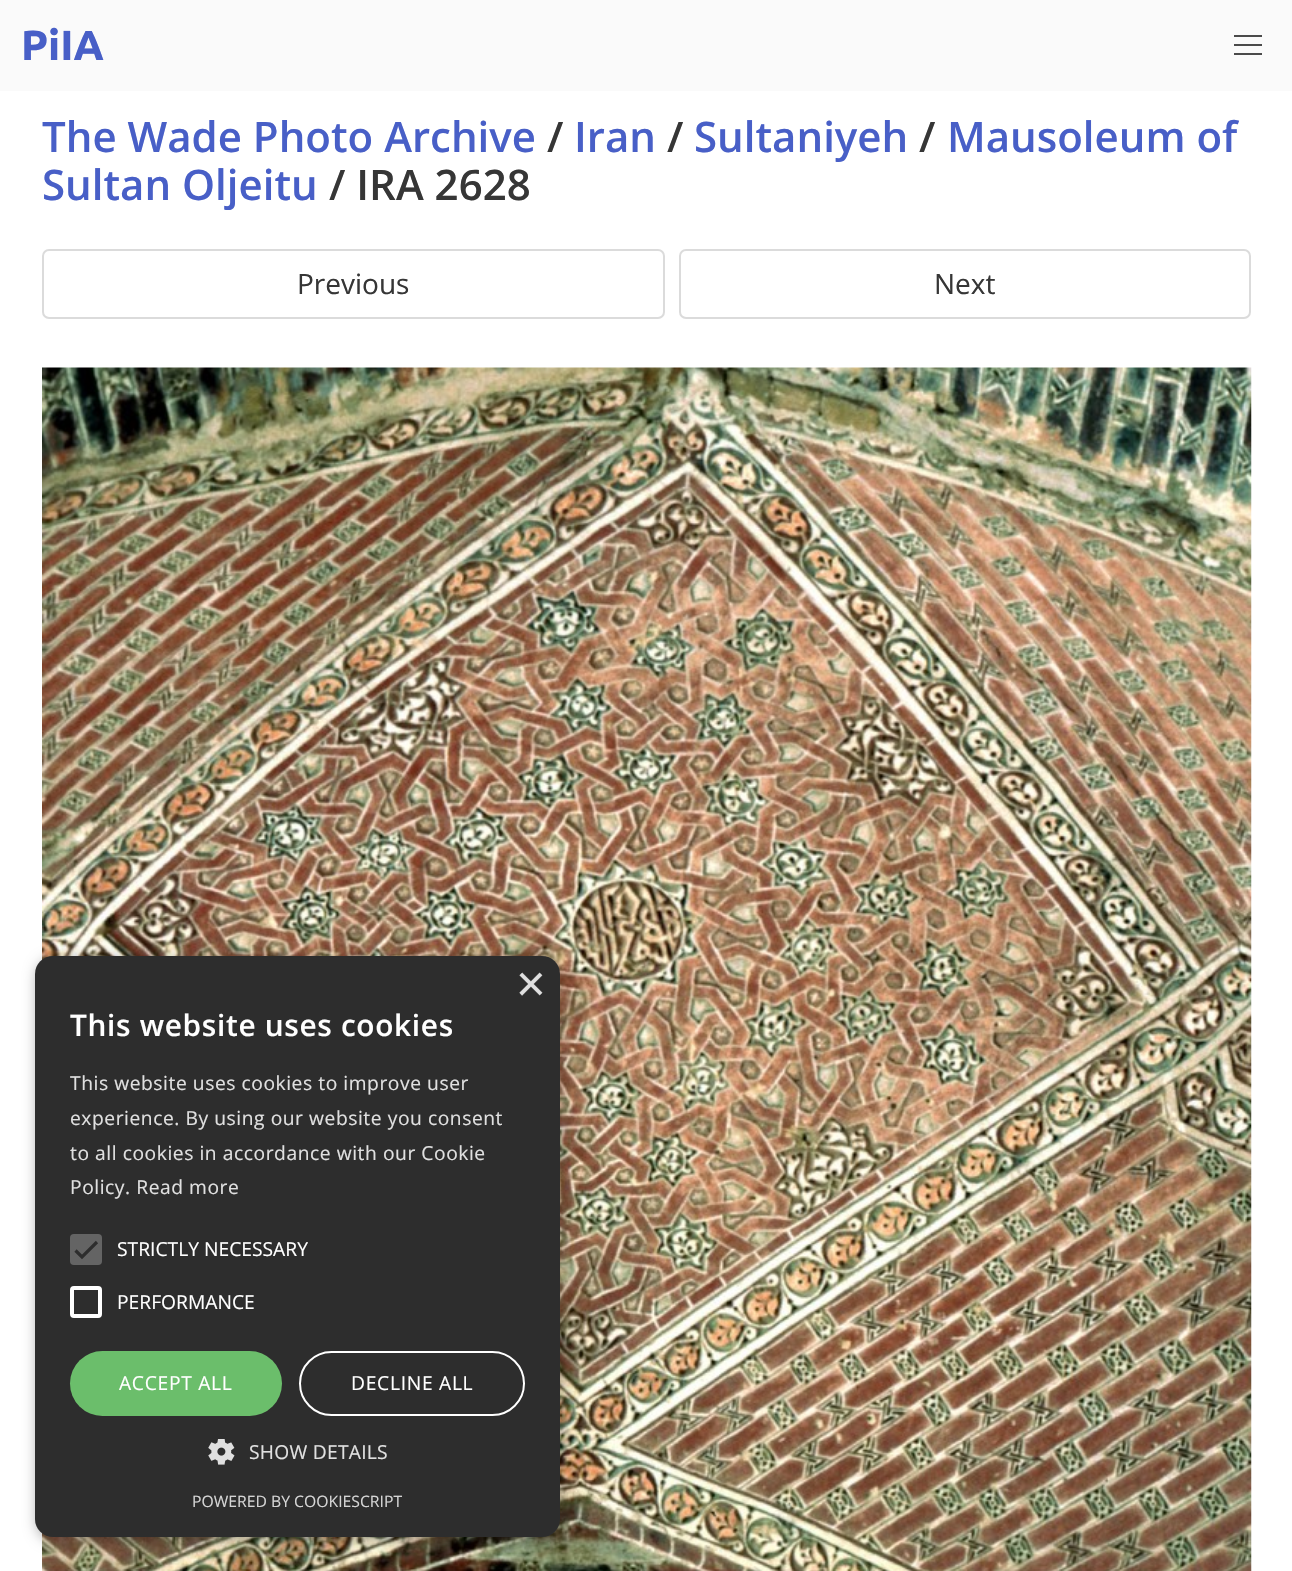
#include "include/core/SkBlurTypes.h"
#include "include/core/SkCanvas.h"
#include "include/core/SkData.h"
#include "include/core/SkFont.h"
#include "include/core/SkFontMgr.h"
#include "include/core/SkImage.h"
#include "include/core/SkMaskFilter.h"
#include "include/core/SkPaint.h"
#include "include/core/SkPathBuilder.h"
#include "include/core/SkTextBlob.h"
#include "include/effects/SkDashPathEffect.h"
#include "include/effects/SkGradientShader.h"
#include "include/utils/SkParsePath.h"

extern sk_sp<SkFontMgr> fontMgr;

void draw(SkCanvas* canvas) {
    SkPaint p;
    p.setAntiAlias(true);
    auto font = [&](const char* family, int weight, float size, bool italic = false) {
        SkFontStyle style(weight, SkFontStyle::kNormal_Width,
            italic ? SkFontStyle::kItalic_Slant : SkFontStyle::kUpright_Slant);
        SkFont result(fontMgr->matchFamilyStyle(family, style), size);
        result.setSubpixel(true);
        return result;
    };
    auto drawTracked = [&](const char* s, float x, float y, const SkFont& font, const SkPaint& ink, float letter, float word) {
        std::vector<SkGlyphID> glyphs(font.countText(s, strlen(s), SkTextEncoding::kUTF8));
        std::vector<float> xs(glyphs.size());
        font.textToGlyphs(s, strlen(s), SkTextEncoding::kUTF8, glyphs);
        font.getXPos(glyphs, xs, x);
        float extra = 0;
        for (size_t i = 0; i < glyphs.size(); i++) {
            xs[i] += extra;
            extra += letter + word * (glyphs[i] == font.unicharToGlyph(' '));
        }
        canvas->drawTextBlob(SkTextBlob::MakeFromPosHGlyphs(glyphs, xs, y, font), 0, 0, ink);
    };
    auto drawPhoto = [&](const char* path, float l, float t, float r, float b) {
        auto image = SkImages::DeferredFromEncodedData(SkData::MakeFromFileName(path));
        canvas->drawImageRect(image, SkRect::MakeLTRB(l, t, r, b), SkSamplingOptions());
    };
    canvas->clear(0xFFFFFFFF);
    p.setColor(0xFFFAFAFA);
    canvas->drawRect(SkRect::MakeLTRB(0, 0, 1292, 91), p);
    auto font1 = font("Ubuntu", 700, 42);
    p.setColor(0xFF485FC7);
    canvas->drawString("PiIA", 21, 60, font1, p);
    {
        const struct { float l, t, r, b; SkColor color; } items[] = {
            {1234, 35, 1262, 37, 0xFF4A4A4A},
            {1234, 44, 1262, 46, 0xFF4A4A4A},
            {1234, 53, 1262, 55, 0xFF4A4A4A},
        };
        for (auto [l, t, r, b, color] : items) {
            p.setColor(color);
            canvas->drawRect(SkRect::MakeLTRB(l, t, r, b), p);
        }
    }
    auto font2 = font("Open Sans", 600, 42);
    p.setColor(0xFF485FC7);
    canvas->drawString("The Wade Photo Archive", 42, 152, font2, p);
    p.setColor(0xFF363636);
    canvas->drawString("/", 547, 152, font2, p);
    p.setColor(0xFF485FC7);
    canvas->drawString("Iran", 574, 152, font2, p);
    p.setColor(0xFF363636);
    canvas->drawString("/", 667, 152, font2, p);
    p.setColor(0xFF485FC7);
    canvas->drawString("Sultaniyeh", 694, 152, font2, p);
    p.setColor(0xFF363636);
    canvas->drawString("/", 919, 152, font2, p);
    p.setColor(0xFF485FC7);
    canvas->drawString("Mausoleum of", 947, 152, font2, p);
    canvas->drawString("Sultan Oljeitu", 42, 200, font2, p);
    p.setColor(0xFF363636);
    canvas->drawString("/ IRA 2628", 329, 200, font2, p);
    p.setStyle(SkPaint::kStroke_Style);
    p.setStrokeWidth(2);
    p.setColor(0xFFDBDBDB);
    canvas->drawRoundRect(SkRect::MakeLTRB(43, 250, 664, 318), 6, 6, p);
    auto font3 = font("Open Sans", 400, 28);
    p.setStyle(SkPaint::kFill_Style);
    p.setColor(0xFF363636);
    canvas->drawString("Previous", 297, 294, font3, p);
    p.setStyle(SkPaint::kStroke_Style);
    p.setColor(0xFFDBDBDB);
    canvas->drawRoundRect(SkRect::MakeLTRB(680, 250, 1250, 318), 6, 6, p);
    p.setStyle(SkPaint::kFill_Style);
    p.setColor(0xFF363636);
    canvas->drawString("Next", 934, 294, font3, p);
    drawPhoto("media/1.png", 42, 367, 1252, 1571);
    p.setColor(0x59000000);
    p.setMaskFilter(SkMaskFilter::MakeBlur(kNormal_SkBlurStyle, 7));
    canvas->drawRoundRect(SkRect::MakeLTRB(37, 959, 562, 1540), 18, 18, p);
    p.setMaskFilter(nullptr);
    p.setColor(0xFF2D2D2D);
    canvas->drawRoundRect(SkRect::MakeLTRB(35, 956, 560, 1537), 18, 18, p);
    auto font4 = font("Liberation Sans", 400, 51);
    p.setColor(0xFFE0E0E0);
    canvas->drawString("×", 516, 1001, font4, p);
    auto font5 = font("Open Sans", 600, 29.75f);
    p.setColor(0xFFFFFFFF);
    drawTracked("This website uses cookies", 70, 1036, font5, p, 0.7f, 0);
    auto font6 = font("Open Sans", 400, 19.25f);
    p.setColor(0xFFE0E0E0);
    {
        const struct { const char* s; float x, y; } items[] = {
            {"This website uses cookies to improve user", 70, 1090},
            {"experience. By using our website you consent", 70, 1125},
            {"to all cookies in accordance with our Cookie", 70, 1160},
            {"Policy. Read more", 70, 1194},
        };
        for (auto [s, x, y] : items) {
            drawTracked(s, x, y, font6, p, 0.55f, 0);
        }
    }
    p.setColor(0xFF646464);
    canvas->drawRoundRect(SkRect::MakeLTRB(70, 1234, 102, 1265), 4, 4, p);
    p.setStyle(SkPaint::kStroke_Style);
    p.setStrokeWidth(3.2f);
    p.setColor(0xFF2D2D2D);
    canvas->drawPath(SkPathBuilder().moveTo(75.5f, 1250.5f).lineTo(82, 1257).lineTo(97, 1242).detach(), p);
    p.setStyle(SkPaint::kFill_Style);
    p.setColor(0xFFFFFFFF);
    canvas->drawString("STRICTLY NECESSARY", 117, 1256, font6, p);
    p.setStyle(SkPaint::kStroke_Style);
    p.setStrokeWidth(4);
    canvas->drawRoundRect(SkRect::MakeLTRB(72, 1288, 100, 1316), 2, 2, p);
    p.setStyle(SkPaint::kFill_Style);
    canvas->drawString("PERFORMANCE", 117, 1309, font6, p);
    p.setColor(0xFF6BBE6B);
    canvas->drawRoundRect(SkRect::MakeLTRB(70, 1351, 282, 1416), 32.5f, 32.5f, p);
    p.setColor(0xFFFFFFFF);
    drawTracked("ACCEPT ALL", 119, 1390, font6, p, 0.7f, 0);
    p.setStyle(SkPaint::kStroke_Style);
    p.setStrokeWidth(2);
    canvas->drawRoundRect(SkRect::MakeLTRB(300, 1352, 524, 1415), 31.5f, 31.5f, p);
    p.setStyle(SkPaint::kFill_Style);
    drawTracked("DECLINE ALL", 351, 1390, font6, p, 0.7f, 0);
    drawPhoto("media/2.png", 208, 1439, 235, 1465);
    p.setColor(0xFFE0E0E0);
    drawTracked("SHOW DETAILS", 249, 1459, font6, p, 0.25f, 0);
    auto font7 = font("Open Sans", 400, 15.75f);
    p.setColor(0xFFD5D5D5);
    canvas->drawString("POWERED BY COOKIESCRIPT", 192, 1507, font7, p);
}
